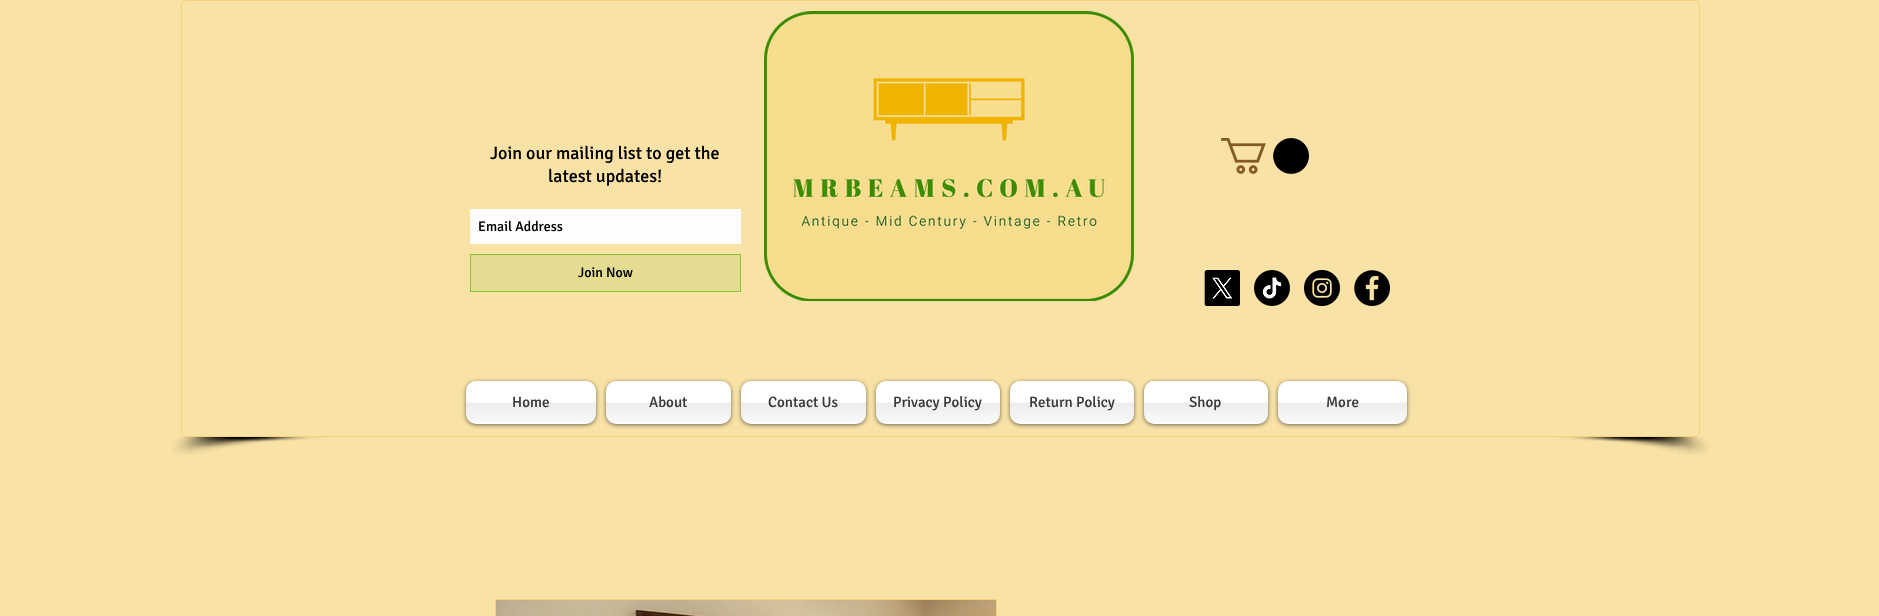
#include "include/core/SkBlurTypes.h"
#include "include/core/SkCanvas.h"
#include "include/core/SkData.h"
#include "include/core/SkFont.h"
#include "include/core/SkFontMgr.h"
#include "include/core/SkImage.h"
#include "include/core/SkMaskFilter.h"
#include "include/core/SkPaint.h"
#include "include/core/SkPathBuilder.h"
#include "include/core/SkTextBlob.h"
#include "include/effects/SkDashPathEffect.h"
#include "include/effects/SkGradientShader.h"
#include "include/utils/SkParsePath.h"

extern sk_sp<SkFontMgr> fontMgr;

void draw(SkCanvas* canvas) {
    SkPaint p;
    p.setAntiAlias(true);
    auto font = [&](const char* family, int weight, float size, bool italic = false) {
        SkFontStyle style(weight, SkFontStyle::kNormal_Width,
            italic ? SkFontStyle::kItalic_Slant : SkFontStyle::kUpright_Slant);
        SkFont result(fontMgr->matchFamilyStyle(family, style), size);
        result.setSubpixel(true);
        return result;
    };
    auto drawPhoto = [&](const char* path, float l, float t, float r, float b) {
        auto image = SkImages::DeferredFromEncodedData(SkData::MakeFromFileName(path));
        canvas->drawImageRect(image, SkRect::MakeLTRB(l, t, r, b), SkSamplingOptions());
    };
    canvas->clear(0xFFF9E2A6);
    p.setStyle(SkPaint::kStroke_Style);
    p.setStrokeWidth(1);
    p.setColor(0xFFF4D27A);
    canvas->drawRoundRect(SkRect::MakeLTRB(181.5f, 0.5f, 1699.5f, 436.5f), 4.5f, 4.5f, p);
    auto font1 = font("Signika", 400, 18);
    p.setStyle(SkPaint::kFill_Style);
    p.setColor(0xFF000000);
    canvas->drawString("Join our mailing list to get the", 490, 159, font1, p);
    canvas->drawString("latest updates!", 548, 182, font1, p);
    p.setColor(0xFFFEFDFD);
    canvas->drawRect(SkRect::MakeLTRB(470, 209, 741, 244), p);
    auto font2 = font("Signika", 400, 14);
    p.setColor(0xFF000000);
    canvas->drawString("Email Address", 478, 231, font2, p);
    p.setColor(0xFFE4DD91);
    canvas->drawRect(SkRect::MakeLTRB(470.5f, 254.5f, 740.5f, 291.5f), p);
    p.setStyle(SkPaint::kStroke_Style);
    p.setColor(0xFF86C633);
    canvas->drawRect(SkRect::MakeLTRB(470.5f, 254.5f, 740.5f, 291.5f), p);
    p.setStyle(SkPaint::kFill_Style);
    p.setColor(0xFF000000);
    canvas->drawString("Join Now", 578, 277, font2, p);
    drawPhoto("media/1.png", 764, 11, 1134, 301);
    drawPhoto("media/2.png", 1221, 138, 1309, 174);
    drawPhoto("media/3.png", 1204, 270, 1240, 306);
    drawPhoto("media/4.png", 1254, 270, 1290, 306);
    drawPhoto("media/5.png", 1304, 270, 1340, 306);
    drawPhoto("media/6.png", 1354, 270, 1390, 306);
    p.setColor(0x8F000000);
    p.setMaskFilter(SkMaskFilter::MakeBlur(kNormal_SkBlurStyle, 2));
    canvas->drawRoundRect(SkRect::MakeLTRB(466, 382, 596, 425), 10, 10, p);
    p.setMaskFilter(nullptr);
    p.setColor(0xFFFFFFFF);
    canvas->drawRoundRect(SkRect::MakeLTRB(466, 381, 596, 424), 10, 10, p);
    drawPhoto("media/7.png", 466, 381, 596, 423);
    auto font3 = font("Signika", 400, 15);
    p.setColor(0xFF383838);
    canvas->drawString("Home", 512, 407, font3, p);
    p.setColor(0x8F000000);
    p.setMaskFilter(SkMaskFilter::MakeBlur(kNormal_SkBlurStyle, 2));
    canvas->drawRoundRect(SkRect::MakeLTRB(606, 382, 731, 425), 10, 10, p);
    p.setMaskFilter(nullptr);
    p.setColor(0xFFFFFFFF);
    canvas->drawRoundRect(SkRect::MakeLTRB(606, 381, 731, 424), 10, 10, p);
    drawPhoto("media/8.png", 606, 381, 731, 423);
    p.setColor(0xFF383838);
    canvas->drawString("About", 649, 407, font3, p);
    p.setColor(0x8F000000);
    p.setMaskFilter(SkMaskFilter::MakeBlur(kNormal_SkBlurStyle, 2));
    canvas->drawRoundRect(SkRect::MakeLTRB(741, 382, 866, 425), 10, 10, p);
    p.setMaskFilter(nullptr);
    p.setColor(0xFFFFFFFF);
    canvas->drawRoundRect(SkRect::MakeLTRB(741, 381, 866, 424), 10, 10, p);
    drawPhoto("media/8.png", 741, 381, 866, 423);
    p.setColor(0xFF383838);
    canvas->drawString("Contact Us", 768, 407, font3, p);
    p.setColor(0x8F000000);
    p.setMaskFilter(SkMaskFilter::MakeBlur(kNormal_SkBlurStyle, 2));
    canvas->drawRoundRect(SkRect::MakeLTRB(876, 382, 1000, 425), 10, 10, p);
    p.setMaskFilter(nullptr);
    p.setColor(0xFFFFFFFF);
    canvas->drawRoundRect(SkRect::MakeLTRB(876, 381, 1000, 424), 10, 10, p);
    drawPhoto("media/9.png", 876, 381, 1000, 423);
    p.setColor(0xFF383838);
    canvas->drawString("Privacy Policy", 893, 407, font3, p);
    p.setColor(0x8F000000);
    p.setMaskFilter(SkMaskFilter::MakeBlur(kNormal_SkBlurStyle, 2));
    canvas->drawRoundRect(SkRect::MakeLTRB(1010, 382, 1134, 425), 10, 10, p);
    p.setMaskFilter(nullptr);
    p.setColor(0xFFFFFFFF);
    canvas->drawRoundRect(SkRect::MakeLTRB(1010, 381, 1134, 424), 10, 10, p);
    drawPhoto("media/10.png", 1010, 381, 1134, 423);
    p.setColor(0xFF383838);
    canvas->drawString("Return Policy", 1029, 407, font3, p);
    p.setColor(0x8F000000);
    p.setMaskFilter(SkMaskFilter::MakeBlur(kNormal_SkBlurStyle, 2));
    canvas->drawRoundRect(SkRect::MakeLTRB(1144, 382, 1268, 425), 10, 10, p);
    p.setMaskFilter(nullptr);
    p.setColor(0xFFFFFFFF);
    canvas->drawRoundRect(SkRect::MakeLTRB(1144, 381, 1268, 424), 10, 10, p);
    drawPhoto("media/9.png", 1144, 381, 1268, 423);
    p.setColor(0xFF383838);
    canvas->drawString("Shop", 1189, 407, font3, p);
    p.setColor(0x8F000000);
    p.setMaskFilter(SkMaskFilter::MakeBlur(kNormal_SkBlurStyle, 2));
    canvas->drawRoundRect(SkRect::MakeLTRB(1278, 382, 1407, 425), 10, 10, p);
    p.setMaskFilter(nullptr);
    p.setColor(0xFFFFFFFF);
    canvas->drawRoundRect(SkRect::MakeLTRB(1278, 381, 1407, 424), 10, 10, p);
    drawPhoto("media/11.png", 1278, 381, 1407, 423);
    p.setColor(0xFF383838);
    canvas->drawString("More", 1326, 407, font3, p);
    drawPhoto("media/12.png", 172, 437, 326, 455);
    drawPhoto("media/13.png", 1555, 437, 1709, 455);
    p.setStyle(SkPaint::kStroke_Style);
    p.setColor(0xFFF4D27A);
    canvas->drawRect(SkRect::MakeLTRB(495.5f, 599.5f, 996.5f, 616.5f), p);
    drawPhoto("media/14.png", 496, 600, 996, 616);
}
